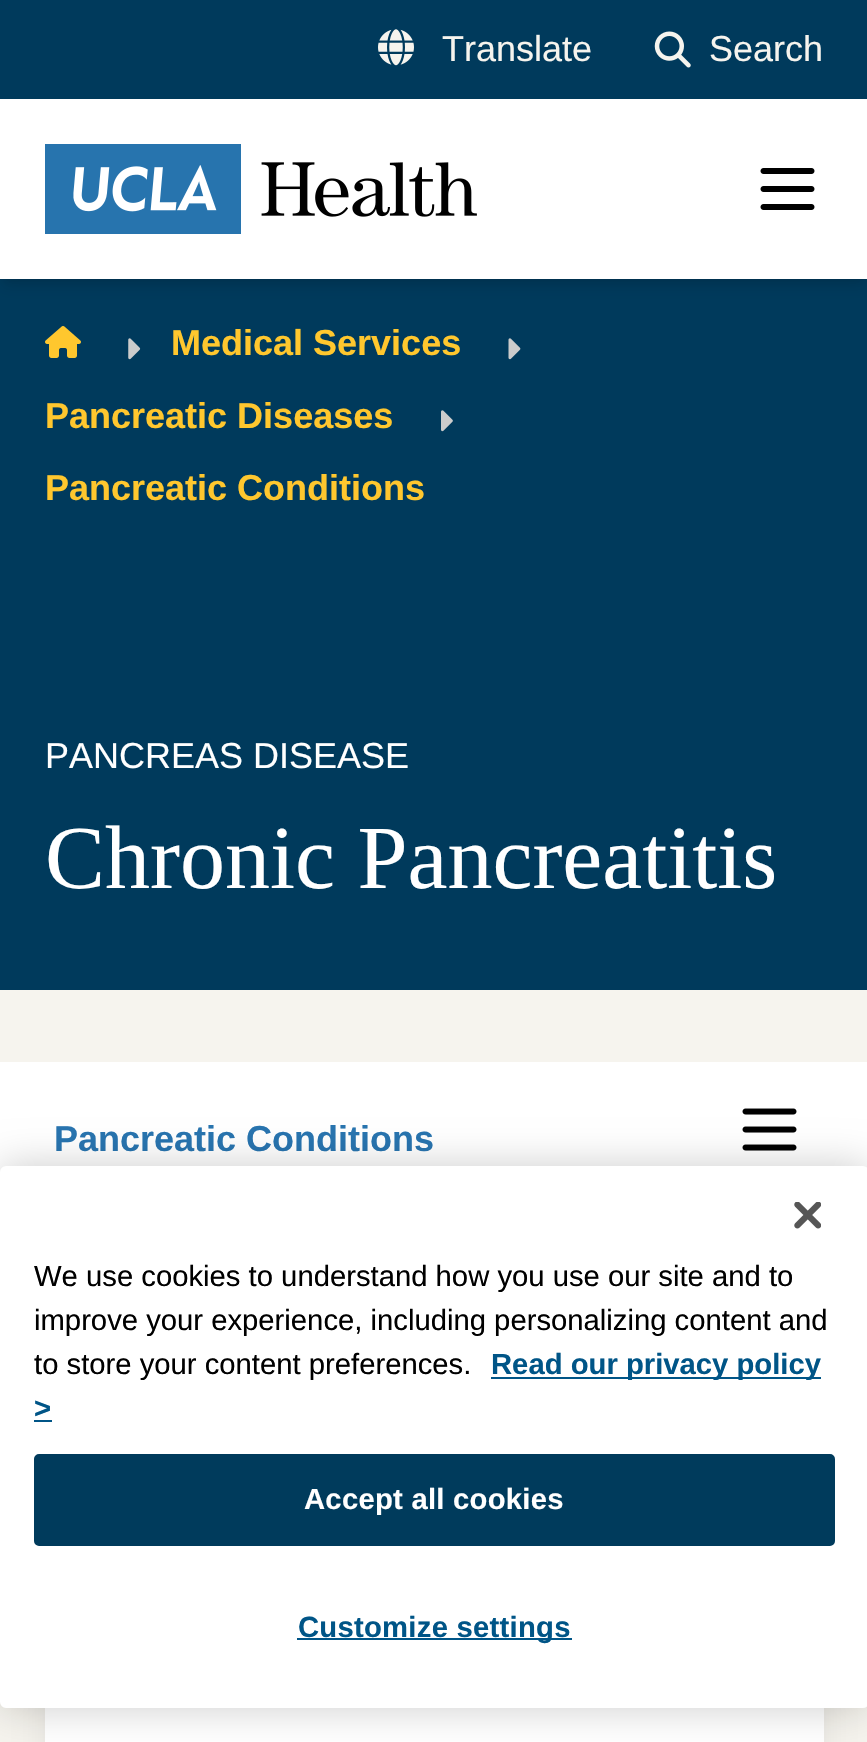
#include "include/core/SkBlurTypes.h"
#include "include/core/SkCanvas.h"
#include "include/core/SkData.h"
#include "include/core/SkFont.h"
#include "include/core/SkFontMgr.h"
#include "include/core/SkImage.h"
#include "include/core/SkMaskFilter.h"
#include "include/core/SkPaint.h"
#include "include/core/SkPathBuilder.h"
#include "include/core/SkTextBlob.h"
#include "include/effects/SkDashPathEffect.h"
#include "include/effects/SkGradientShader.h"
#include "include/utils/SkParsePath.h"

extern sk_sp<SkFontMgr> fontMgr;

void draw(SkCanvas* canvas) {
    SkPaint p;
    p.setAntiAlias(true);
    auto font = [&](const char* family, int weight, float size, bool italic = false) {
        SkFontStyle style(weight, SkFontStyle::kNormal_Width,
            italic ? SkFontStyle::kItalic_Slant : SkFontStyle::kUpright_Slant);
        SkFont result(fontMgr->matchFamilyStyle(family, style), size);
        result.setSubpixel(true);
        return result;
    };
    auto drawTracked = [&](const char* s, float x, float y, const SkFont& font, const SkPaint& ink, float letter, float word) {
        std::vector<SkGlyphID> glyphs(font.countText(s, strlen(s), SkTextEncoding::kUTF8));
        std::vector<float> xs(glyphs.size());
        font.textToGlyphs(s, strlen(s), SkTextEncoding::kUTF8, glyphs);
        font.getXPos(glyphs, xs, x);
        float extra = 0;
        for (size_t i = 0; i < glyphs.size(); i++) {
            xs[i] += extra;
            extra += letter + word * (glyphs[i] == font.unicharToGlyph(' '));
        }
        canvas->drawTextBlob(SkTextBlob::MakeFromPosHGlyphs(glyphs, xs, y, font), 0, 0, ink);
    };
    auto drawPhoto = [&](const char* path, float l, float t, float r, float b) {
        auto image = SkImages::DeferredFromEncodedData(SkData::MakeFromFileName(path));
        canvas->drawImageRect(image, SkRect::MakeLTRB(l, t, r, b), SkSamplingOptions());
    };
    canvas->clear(0xFFF6F4EE);
    p.setColor(0xFF003A5C);
    canvas->drawRect(SkRect::MakeLTRB(0, 0, 867, 99), p);
    drawPhoto("media/1.png", 378, 29, 414, 66);
    auto font1 = font("Liberation Sans", 400, 36);
    p.setColor(0xFFF6F4EE);
    canvas->drawString("Translate", 442, 61, font1, p);
    drawPhoto("media/2.png", 654, 31, 691, 68);
    canvas->drawString("Search", 709, 61, font1, p);
    p.setColor(0xFF003A5C);
    canvas->drawRect(SkRect::MakeLTRB(0, 279, 867, 990), p);
    p.setColor(0x1A000000);
    p.setMaskFilter(SkMaskFilter::MakeBlur(kNormal_SkBlurStyle, 4.5f));
    canvas->drawRect(SkRect::MakeLTRB(5, 108, 864, 279), p);
    p.setMaskFilter(nullptr);
    p.setMaskFilter(SkMaskFilter::MakeBlur(kNormal_SkBlurStyle, 7));
    canvas->drawRect(SkRect::MakeLTRB(2, 110, 866, 286), p);
    p.setMaskFilter(nullptr);
    p.setColor(0xFFFFFFFF);
    canvas->drawRect(SkRect::MakeLTRB(0, 99, 867, 279), p);
    drawPhoto("media/3.png", 45, 144, 477, 234);
    drawPhoto("media/4.png", 760, 168, 815, 210);
    drawPhoto("media/5.png", 45, 326, 81, 358);
    drawPhoto("media/6.png", 128, 338, 141, 360);
    auto font2 = font("Liberation Sans", 700, 36);
    p.setColor(0xFFFFC72E);
    canvas->drawString("Medical Services", 171, 355, font2, p);
    drawPhoto("media/7.png", 508, 338, 521, 360);
    canvas->drawString("Pancreatic Diseases", 45, 428, font2, p);
    drawPhoto("media/8.png", 441, 410, 453, 432);
    canvas->drawString("Pancreatic Conditions", 45, 500, font2, p);
    p.setColor(0xFFFFFFFF);
    canvas->drawString("PANCREAS DISEASE", 45, 768, font1, p);
    auto font3 = font("Liberation Serif", 400, 90);
    canvas->drawString("Chronic Pancreatitis", 45, 888, font3, p);
    canvas->drawRect(SkRect::MakeLTRB(0, 1062, 867, 1172), p);
    p.setColor(0xFF2874AF);
    canvas->drawString("Pancreatic Conditions", 54, 1151, font2, p);
    drawPhoto("media/9.png", 742, 1108, 797, 1151);
    p.setColor(0x1A000000);
    p.setMaskFilter(SkMaskFilter::MakeBlur(kNormal_SkBlurStyle, 17));
    canvas->drawRoundRect(SkRect::MakeLTRB(52, 1321, 817, 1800), 7, 7, p);
    p.setMaskFilter(nullptr);
    p.setColor(0xFFFFFFFF);
    canvas->drawRect(SkRect::MakeLTRB(45, 1708, 824, 1742), p);
    p.setColor(0x33000000);
    p.setMaskFilter(SkMaskFilter::MakeBlur(kNormal_SkBlurStyle, 20));
    canvas->drawRoundRect(SkRect::MakeLTRB(0, 1166, 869, 1708), 6, 6, p);
    p.setMaskFilter(nullptr);
    p.setColor(0xFFFFFFFF);
    canvas->drawRoundRect(SkRect::MakeLTRB(0, 1166, 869, 1708), 6, 6, p);
    drawPhoto("media/10.png", 794, 1202, 821, 1229);
    auto font4 = font("Liberation Sans", 400, 29.25f);
    p.setColor(0xFF000000);
    {
        const struct { const char* s; float x, y; } items[] = {
            {"We use cookies to understand how you use our site and to", 34, 1286},
            {"improve your experience, including personalizing content and", 34, 1330},
            {"to store your content preferences.", 34, 1374},
        };
        for (auto [s, x, y] : items) {
            canvas->drawString(s, x, y, font4, p);
        }
    }
    p.setColor(0xFF005587);
    canvas->drawRect(SkRect::MakeLTRB(491, 1377, 821, 1379), p);
    auto font5 = font("Liberation Sans", 700, 29.25f);
    canvas->drawString("Read our privacy policy", 491, 1374, font5, p);
    canvas->drawString(">", 34, 1418, font5, p);
    canvas->drawRect(SkRect::MakeLTRB(34, 1420, 52, 1422), p);
    p.setColor(0xFF003B5C);
    canvas->drawRoundRect(SkRect::MakeLTRB(35, 1455, 834, 1545), 4, 4, p);
    p.setStyle(SkPaint::kStroke_Style);
    p.setStrokeWidth(2);
    canvas->drawRoundRect(SkRect::MakeLTRB(35, 1455, 834, 1545), 4, 4, p);
    p.setStyle(SkPaint::kFill_Style);
    p.setColor(0xFFFFFFFF);
    drawTracked("Accept all cookies", 304, 1509, font5, p, 0.25f, 0);
    p.setColor(0xFF005587);
    canvas->drawRect(SkRect::MakeLTRB(297, 1638, 572, 1640), p);
    drawTracked("Customize settings", 298, 1637, font5, p, 0.25f, 0);
}
